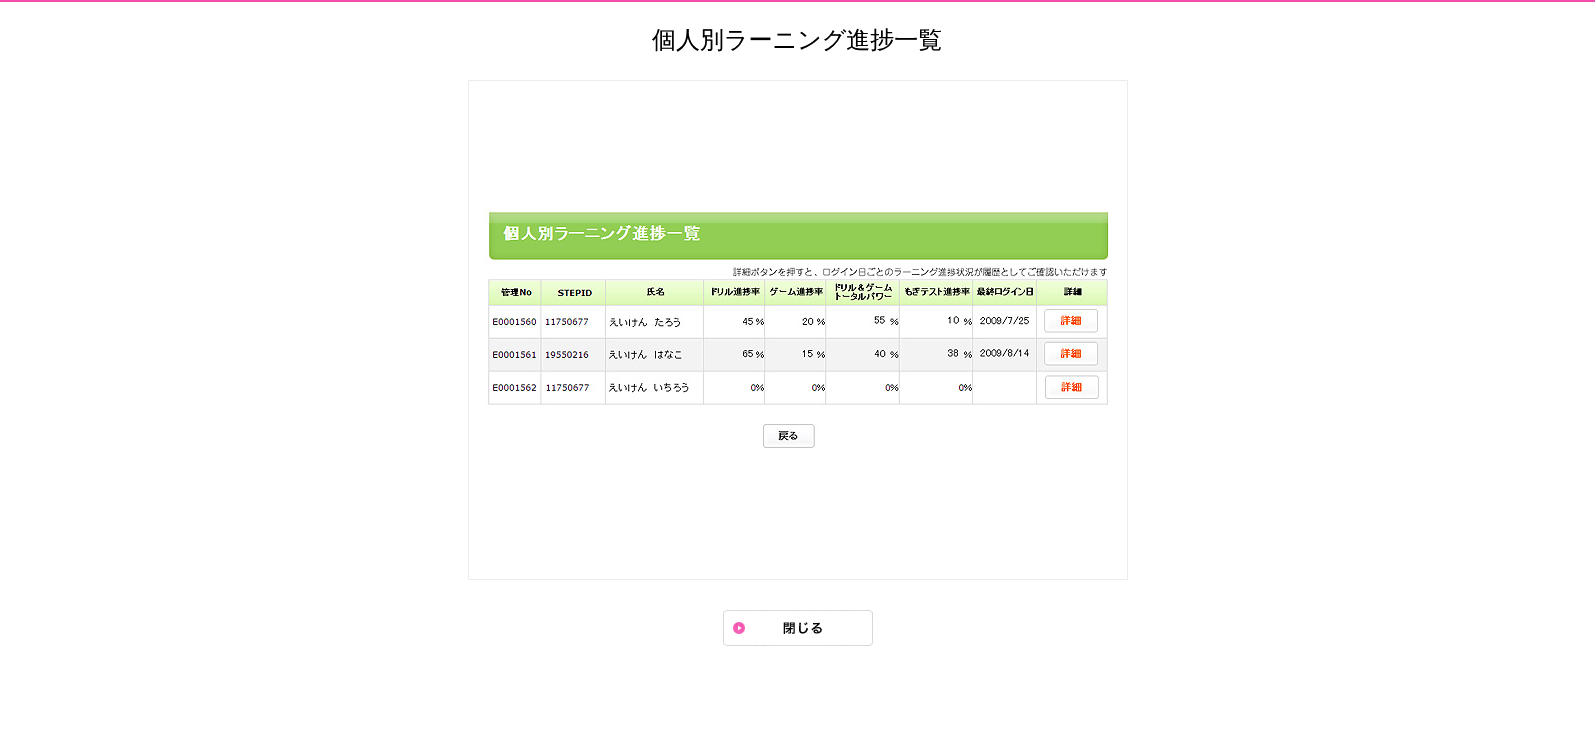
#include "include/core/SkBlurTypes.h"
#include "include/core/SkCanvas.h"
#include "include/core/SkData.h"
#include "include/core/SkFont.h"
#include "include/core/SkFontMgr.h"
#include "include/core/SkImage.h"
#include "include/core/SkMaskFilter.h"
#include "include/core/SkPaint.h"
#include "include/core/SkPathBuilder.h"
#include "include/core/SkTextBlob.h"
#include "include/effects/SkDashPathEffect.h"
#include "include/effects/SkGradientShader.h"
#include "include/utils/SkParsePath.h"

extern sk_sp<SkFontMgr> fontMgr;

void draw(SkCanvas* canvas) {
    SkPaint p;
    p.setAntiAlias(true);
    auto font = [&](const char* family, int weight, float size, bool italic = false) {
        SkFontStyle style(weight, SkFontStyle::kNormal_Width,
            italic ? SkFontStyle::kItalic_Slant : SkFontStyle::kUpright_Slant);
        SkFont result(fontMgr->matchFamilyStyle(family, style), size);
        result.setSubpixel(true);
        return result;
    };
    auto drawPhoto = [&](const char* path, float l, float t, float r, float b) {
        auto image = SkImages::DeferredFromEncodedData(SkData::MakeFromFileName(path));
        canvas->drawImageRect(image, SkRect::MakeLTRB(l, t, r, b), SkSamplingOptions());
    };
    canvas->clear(0xFFFFFFFF);
    p.setColor(0xFFF34EAA);
    canvas->drawRect(SkRect::MakeLTRB(0, 0, 1595, 2), p);
    auto font1 = font("WenQuanYi Zen Hei", 500, 24);
    p.setColor(0xFF000000);
    canvas->drawString("個人別ラーニング進捗一覧", 652, 48, font1, p);
    drawPhoto("media/1.png", 468, 80, 1128, 580);
    drawPhoto("media/2.png", 723, 610, 873, 646);
}
